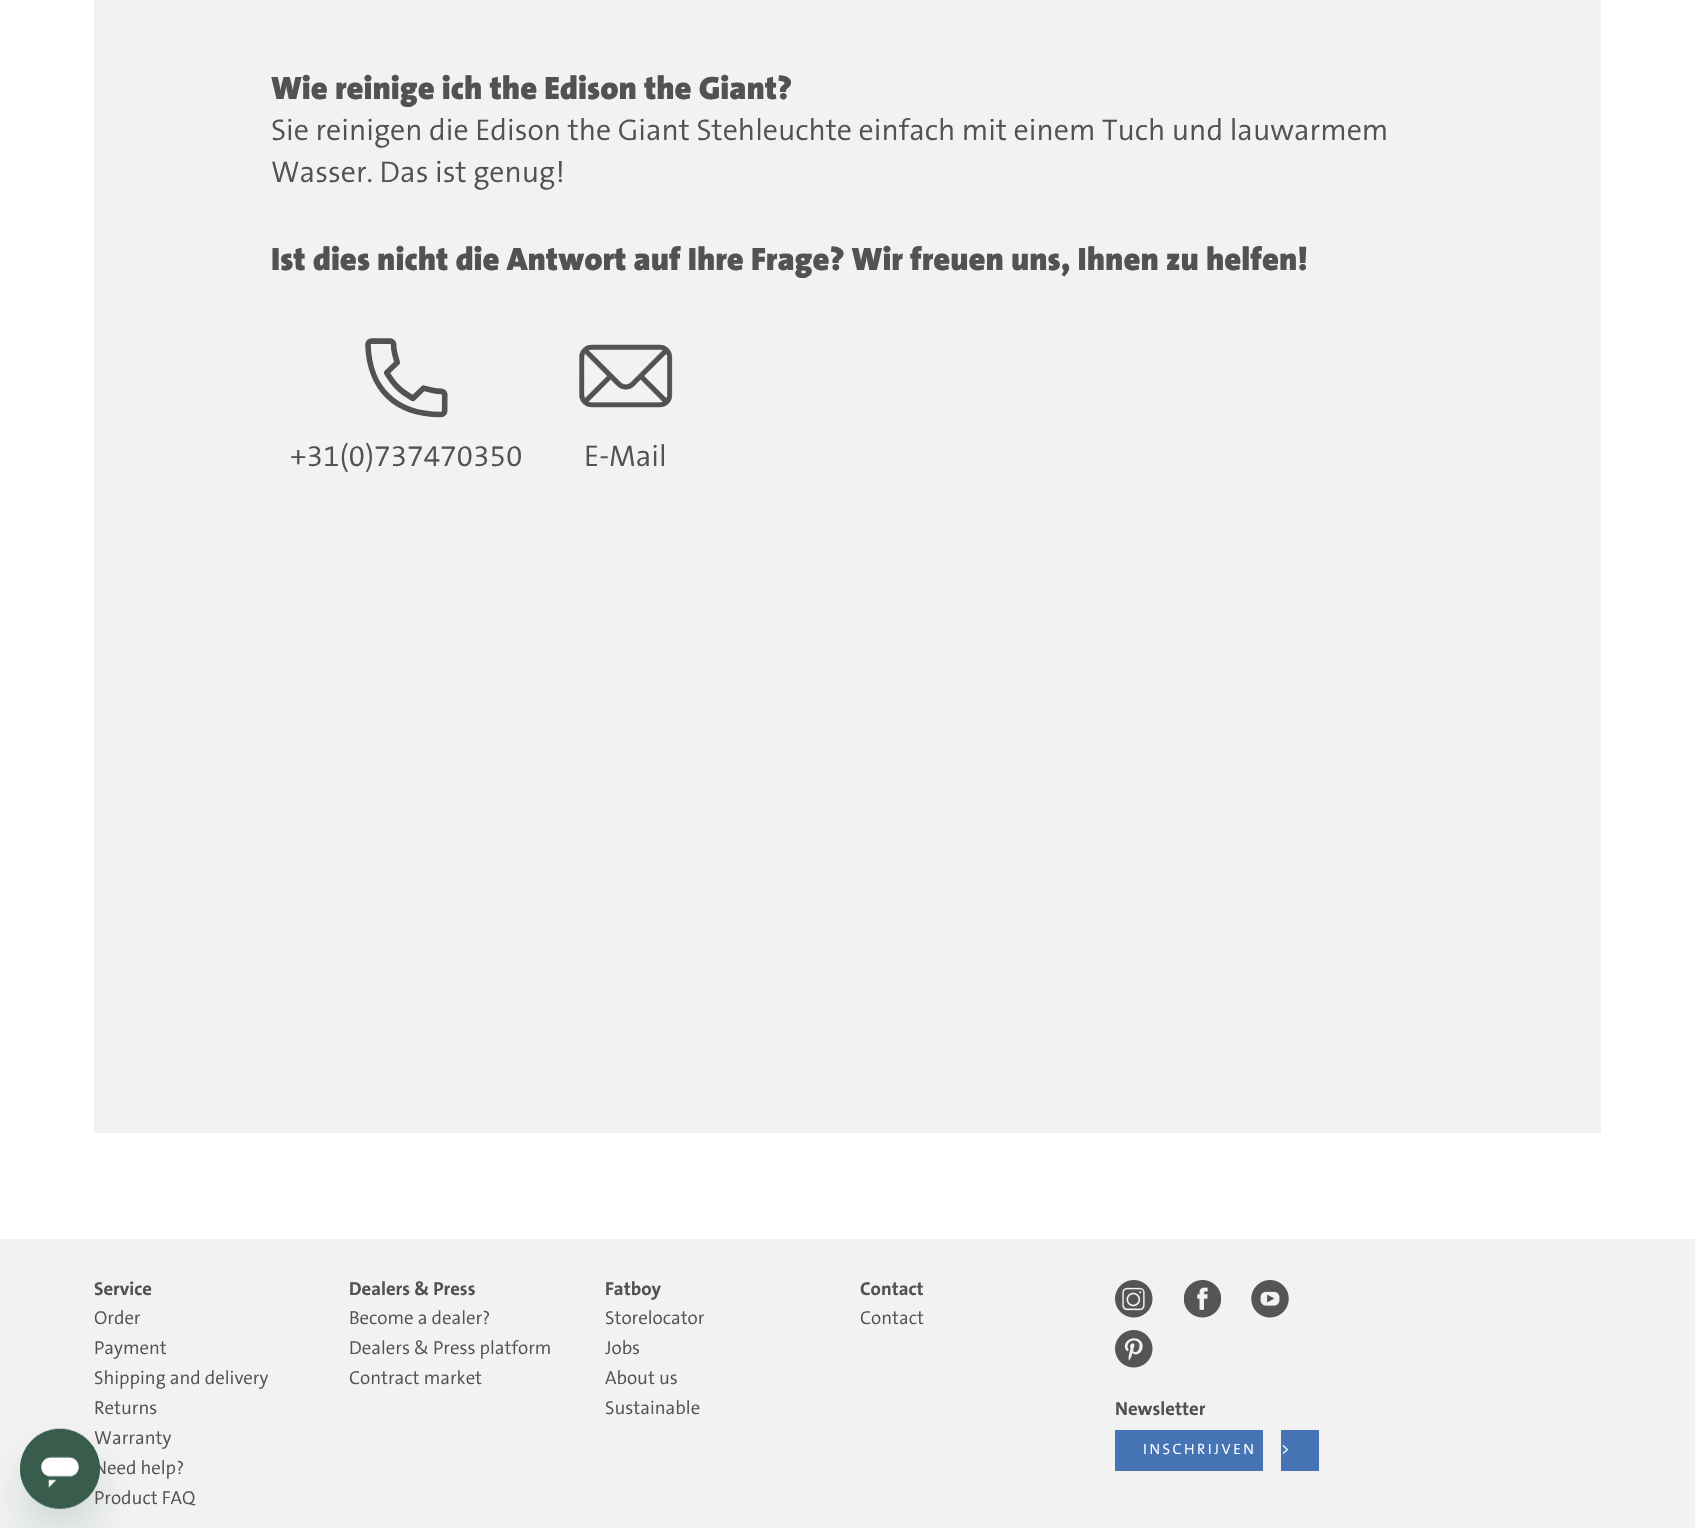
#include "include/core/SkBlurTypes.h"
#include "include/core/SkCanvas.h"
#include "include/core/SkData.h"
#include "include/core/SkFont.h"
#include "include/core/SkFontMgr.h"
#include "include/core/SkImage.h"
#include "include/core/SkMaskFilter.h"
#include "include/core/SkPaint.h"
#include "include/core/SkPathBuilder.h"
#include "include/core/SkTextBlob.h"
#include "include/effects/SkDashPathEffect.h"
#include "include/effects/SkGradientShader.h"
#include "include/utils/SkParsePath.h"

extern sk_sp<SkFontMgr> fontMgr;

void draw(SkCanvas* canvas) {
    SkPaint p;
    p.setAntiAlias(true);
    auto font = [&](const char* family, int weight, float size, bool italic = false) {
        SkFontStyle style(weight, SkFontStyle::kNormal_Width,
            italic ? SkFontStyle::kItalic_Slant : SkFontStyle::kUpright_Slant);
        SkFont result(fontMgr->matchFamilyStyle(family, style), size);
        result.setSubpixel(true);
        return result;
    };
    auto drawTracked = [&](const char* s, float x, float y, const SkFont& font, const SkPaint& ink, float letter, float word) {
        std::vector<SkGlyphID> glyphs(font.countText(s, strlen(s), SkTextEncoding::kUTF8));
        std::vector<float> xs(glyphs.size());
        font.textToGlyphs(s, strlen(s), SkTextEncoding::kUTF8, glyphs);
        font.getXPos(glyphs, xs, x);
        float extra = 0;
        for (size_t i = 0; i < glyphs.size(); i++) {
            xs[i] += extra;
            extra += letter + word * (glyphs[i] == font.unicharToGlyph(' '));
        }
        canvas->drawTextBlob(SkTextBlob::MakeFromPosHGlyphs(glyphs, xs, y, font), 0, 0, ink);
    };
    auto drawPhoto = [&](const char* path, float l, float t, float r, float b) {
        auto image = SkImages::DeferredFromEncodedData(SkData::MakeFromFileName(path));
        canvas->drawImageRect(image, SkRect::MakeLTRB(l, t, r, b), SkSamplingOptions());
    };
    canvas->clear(0xFFFFFFFF);
    p.setColor(0xFFF2F2F2);
    canvas->drawRect(SkRect::MakeLTRB(94, 0, 1601, 1133), p);
    auto font1 = font("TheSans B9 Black", 900, 32.5f);
    p.setColor(0xFF525252);
    canvas->drawString("Wie reinige ich the Edison the Giant?", 271, 99, font1, p);
    auto font2 = font("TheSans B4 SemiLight", 300, 30);
    canvas->drawString("Sie reinigen die Edison the Giant Stehleuchte einfach mit einem Tuch und lauwarmem", 271, 140, font2, p);
    canvas->drawString("Wasser. Das ist genug!", 271, 182, font2, p);
    canvas->drawString("Ist dies nicht die Antwort auf Ihre Frage? Wir freuen uns, Ihnen zu helfen!", 271, 270, font1, p);
    drawPhoto("media/1.png", 365, 338, 448, 418);
    canvas->drawString("+31(0)737470350", 290, 466, font2, p);
    drawPhoto("media/2.png", 579, 344, 673, 408);
    canvas->drawString("E-Mail", 584, 466, font2, p);
    p.setColor(0xFFF2F2F2);
    canvas->drawRect(SkRect::MakeLTRB(0, 1239, 1695, 1528), p);
    p.setColor(0x2617494D);
    p.setMaskFilter(SkMaskFilter::MakeBlur(kNormal_SkBlurStyle, 19));
    canvas->drawRoundRect(SkRect::MakeLTRB(20, 1454, 100, 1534), 40, 40, p);
    p.setMaskFilter(nullptr);
    auto font3 = font("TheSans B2", 300, 18.75f);
    p.setColor(0xFF525252);
    {
        const struct { const char* s; float x, y; } items[] = {
            {"Warranty", 94, 1444},
            {"Need help?", 94, 1474},
            {"Product FAQ", 94, 1504},
        };
        for (auto [s, x, y] : items) {
            canvas->drawString(s, x, y, font3, p);
        }
    }
    drawPhoto("media/3.png", 20, 1428, 100, 1509);
    auto font4 = font("TheSans B2", 700, 18.75f);
    canvas->drawString("Service", 94, 1295, font4, p);
    {
        const struct { const char* s; float x, y; } items[] = {
            {"Order", 94, 1324},
            {"Payment", 94, 1354},
            {"Shipping and delivery", 94, 1384},
            {"Returns", 94, 1414},
        };
        for (auto [s, x, y] : items) {
            canvas->drawString(s, x, y, font3, p);
        }
    }
    canvas->drawString("Dealers & Press", 349, 1295, font4, p);
    {
        const struct { const char* s; float x, y; } items[] = {
            {"Become a dealer?", 349, 1324},
            {"Dealers & Press platform", 349, 1354},
            {"Contract market", 349, 1384},
        };
        for (auto [s, x, y] : items) {
            canvas->drawString(s, x, y, font3, p);
        }
    }
    canvas->drawString("Fatboy", 605, 1295, font4, p);
    {
        const struct { const char* s; float x, y; } items[] = {
            {"Storelocator", 605, 1324},
            {"Jobs", 605, 1354},
            {"About us", 605, 1384},
            {"Sustainable", 605, 1414},
        };
        for (auto [s, x, y] : items) {
            canvas->drawString(s, x, y, font3, p);
        }
    }
    canvas->drawString("Contact", 860, 1295, font4, p);
    canvas->drawString("Contact", 860, 1324, font3, p);
    drawPhoto("media/4.png", 1115, 1280, 1153, 1318);
    drawPhoto("media/5.png", 1184, 1280, 1221, 1318);
    drawPhoto("media/6.png", 1251, 1280, 1289, 1318);
    drawPhoto("media/7.png", 1115, 1330, 1153, 1368);
    canvas->drawString("Newsletter", 1115, 1415, font4, p);
    p.setColor(0xFF4774B4);
    canvas->drawRect(SkRect::MakeLTRB(1115, 1430, 1263, 1471), p);
    auto font5 = font("TheSans B4 SemiLight", 300, 15);
    p.setColor(0xFFFFFFFF);
    drawTracked("INSCHRIJVEN", 1143, 1454, font5, p, 2.5f, 0);
    p.setColor(0xFF4774B4);
    canvas->drawRect(SkRect::MakeLTRB(1281, 1430, 1319, 1471), p);
    p.setColor(0xFFFFFFFF);
    drawTracked(">", 1281, 1454, font5, p, 2.5f, 0);
}
